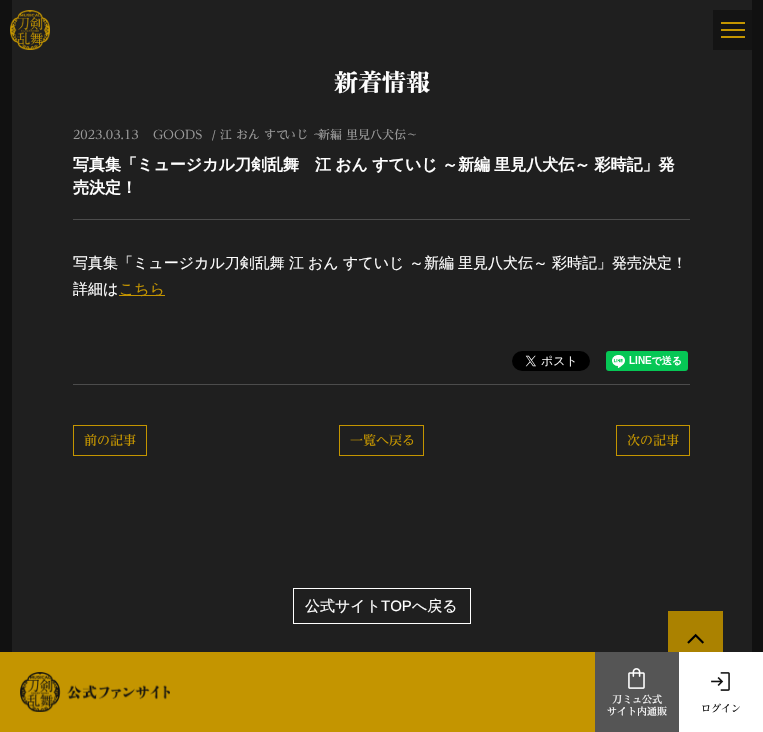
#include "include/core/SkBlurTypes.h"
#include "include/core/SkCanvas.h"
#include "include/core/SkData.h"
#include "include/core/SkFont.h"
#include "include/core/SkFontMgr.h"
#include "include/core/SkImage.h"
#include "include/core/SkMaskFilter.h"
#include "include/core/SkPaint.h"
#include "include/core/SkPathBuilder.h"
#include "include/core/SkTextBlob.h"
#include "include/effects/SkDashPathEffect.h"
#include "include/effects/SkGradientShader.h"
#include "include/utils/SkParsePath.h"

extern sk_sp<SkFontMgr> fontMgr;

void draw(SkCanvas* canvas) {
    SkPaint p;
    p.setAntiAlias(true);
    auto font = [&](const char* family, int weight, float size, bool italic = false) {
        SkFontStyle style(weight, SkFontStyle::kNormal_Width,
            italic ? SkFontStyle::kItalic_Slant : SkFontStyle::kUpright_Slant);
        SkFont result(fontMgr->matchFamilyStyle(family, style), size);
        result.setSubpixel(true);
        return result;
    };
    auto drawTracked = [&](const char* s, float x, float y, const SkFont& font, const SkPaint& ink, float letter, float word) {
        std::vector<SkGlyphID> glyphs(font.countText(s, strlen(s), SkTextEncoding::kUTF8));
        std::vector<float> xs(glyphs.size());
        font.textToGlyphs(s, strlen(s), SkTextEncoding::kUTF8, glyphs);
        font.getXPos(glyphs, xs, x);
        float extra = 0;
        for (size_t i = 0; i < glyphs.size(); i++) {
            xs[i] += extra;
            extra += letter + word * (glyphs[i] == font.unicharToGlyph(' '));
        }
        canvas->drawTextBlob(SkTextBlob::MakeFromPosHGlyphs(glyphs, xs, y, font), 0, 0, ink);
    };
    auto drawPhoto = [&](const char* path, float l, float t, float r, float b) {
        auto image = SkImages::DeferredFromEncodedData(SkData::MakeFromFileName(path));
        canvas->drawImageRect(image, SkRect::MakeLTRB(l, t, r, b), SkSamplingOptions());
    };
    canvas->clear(0xFF111111);
    p.setColor(0xFF1F1F1F);
    canvas->drawRect(SkRect::MakeLTRB(12, 0, 752, 652), p);
    p.setColor(0xFF141414);
    canvas->drawRect(SkRect::MakeLTRB(713, 10, 752, 50), p);
    drawPhoto("media/1.png", 10, 10, 50, 50);
    {
        const struct { float l, t, r, b; SkColor color; } items[] = {
            {721, 22, 745, 24, 0xFFC49500},
            {721, 29, 745, 31, 0xFFC49500},
            {721, 36, 745, 38, 0xFFC49500},
        };
        for (auto [l, t, r, b, color] : items) {
            p.setColor(color);
            canvas->drawRect(SkRect::MakeLTRB(l, t, r, b), p);
        }
    }
    auto font1 = font("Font", 700, 24);
    p.setColor(0xFFFFFFFF);
    canvas->drawString("新着情報", 334, 91, font1, p);
    p.setColor(0xFF4C4C4C);
    canvas->drawRect(SkRect::MakeLTRB(73, 219, 690, 220), p);
    auto font2 = font("Font", 400, 12);
    p.setColor(0xFF999999);
    canvas->drawString("2023.03.13", 73, 139, font2, p);
    canvas->drawString("GOODS", 153, 139, font2, p);
    auto font3 = font("Noto Serif", 500, 12);
    canvas->drawString("/", 212, 139, font3, p);
    canvas->drawString("江 おん すて", 220, 139, font2, p);
    canvas->drawString("いじ ～", 284, 139, font2, p);
    canvas->drawString("新編 里見八犬伝～", 318, 139, font2, p);
    auto font4 = font("WenQuanYi Zen Hei", 700, 16);
    p.setColor(0xFFFFFFFF);
    drawTracked("写真集「ミュージカル刀剣乱舞　江 おん すていじ ～新編 里見八犬伝～ 彩時記」発", 73, 170, font4, p, 0, -0.5f);
    canvas->drawString("売決定！", 73, 193, font4, p);
    auto font5 = font("WenQuanYi Zen Hei", 500, 15);
    {
        const struct { const char* s; float x, y; } items[] = {
            {"写真集「ミュージカル刀剣乱舞", 73, 268},
            {"江", 289, 268},
            {"おん", 308, 268},
            {"すていじ", 343, 268},
            {"～新編", 409, 268},
            {"里見八犬伝～", 458, 268},
            {"彩時記」発売決定！", 552, 268},
            {"詳細は", 73, 294},
        };
        for (auto [s, x, y] : items) {
            canvas->drawString(s, x, y, font5, p);
        }
    }
    p.setColor(0xFFC49500);
    canvas->drawRect(SkRect::MakeLTRB(119, 295, 165, 296), p);
    canvas->drawString("こちら", 119, 294, font5, p);
    drawPhoto("media/2.png", 512, 351, 590, 371);
    drawPhoto("media/3.png", 606, 351, 688, 371);
    p.setColor(0xFF4C4C4C);
    canvas->drawRect(SkRect::MakeLTRB(73, 384, 690, 385), p);
    p.setStyle(SkPaint::kStroke_Style);
    p.setStrokeWidth(1);
    p.setColor(0xFFC49500);
    canvas->drawRect(SkRect::MakeLTRB(73.5f, 425.5f, 146.5f, 455.5f), p);
    auto font6 = font("Font", 400, 13);
    p.setStyle(SkPaint::kFill_Style);
    canvas->drawString("前の記事", 84, 445, font6, p);
    p.setStyle(SkPaint::kStroke_Style);
    canvas->drawRect(SkRect::MakeLTRB(339.5f, 425.5f, 423.5f, 455.5f), p);
    p.setStyle(SkPaint::kFill_Style);
    canvas->drawString("一覧へ戻る", 350, 445, font6, p);
    p.setStyle(SkPaint::kStroke_Style);
    canvas->drawRect(SkRect::MakeLTRB(616.5f, 425.5f, 689.5f, 455.5f), p);
    p.setStyle(SkPaint::kFill_Style);
    canvas->drawString("次の記事", 627, 445, font6, p);
    canvas->drawRect(SkRect::MakeLTRB(0, 652, 595, 732), p);
    drawPhoto("media/4.png", 20, 672, 170, 712);
    p.setColor(0xFF555555);
    canvas->drawRect(SkRect::MakeLTRB(595, 652, 679, 732), p);
    drawPhoto("media/5.png", 628, 668, 645, 689);
    auto font7 = font("Font", 400, 10);
    p.setColor(0xFFFFFFFF);
    canvas->drawString("刀ミュ公式", 612, 703, font7, p);
    canvas->drawString("サイト内通販", 607, 715, font7, p);
    canvas->drawRect(SkRect::MakeLTRB(679, 652, 763, 732), p);
    drawPhoto("media/6.png", 711, 672, 730, 691);
    p.setColor(0xFF111111);
    canvas->drawString("ログイン", 701, 712, font7, p);
    p.setStyle(SkPaint::kStroke_Style);
    p.setColor(0xFFFFFFFF);
    canvas->drawRect(SkRect::MakeLTRB(293.5f, 588.5f, 470.5f, 623.5f), p);
    p.setStyle(SkPaint::kFill_Style);
    canvas->drawString("公式サイト", 305, 611, font5, p);
    auto font8 = font("Liberation Sans", 400, 15);
    canvas->drawString("TOP", 381, 611, font8, p);
    canvas->drawString("へ戻る", 412, 611, font5, p);
    p.setColor(0xFFAB8200);
    canvas->drawRect(SkRect::MakeLTRB(668, 611, 723, 652), p);
    drawPhoto("media/7.png", 687, 633, 704, 644);
}
